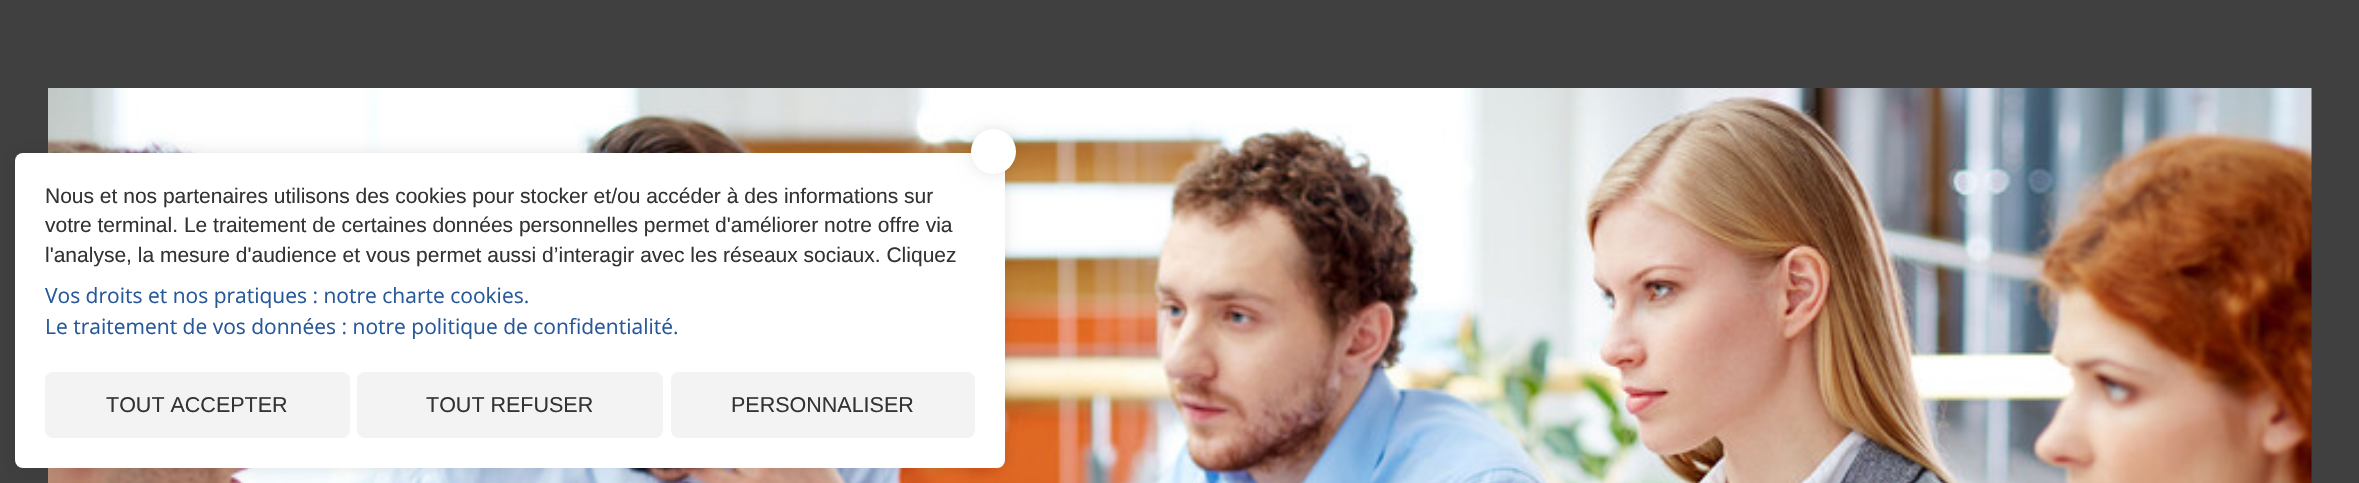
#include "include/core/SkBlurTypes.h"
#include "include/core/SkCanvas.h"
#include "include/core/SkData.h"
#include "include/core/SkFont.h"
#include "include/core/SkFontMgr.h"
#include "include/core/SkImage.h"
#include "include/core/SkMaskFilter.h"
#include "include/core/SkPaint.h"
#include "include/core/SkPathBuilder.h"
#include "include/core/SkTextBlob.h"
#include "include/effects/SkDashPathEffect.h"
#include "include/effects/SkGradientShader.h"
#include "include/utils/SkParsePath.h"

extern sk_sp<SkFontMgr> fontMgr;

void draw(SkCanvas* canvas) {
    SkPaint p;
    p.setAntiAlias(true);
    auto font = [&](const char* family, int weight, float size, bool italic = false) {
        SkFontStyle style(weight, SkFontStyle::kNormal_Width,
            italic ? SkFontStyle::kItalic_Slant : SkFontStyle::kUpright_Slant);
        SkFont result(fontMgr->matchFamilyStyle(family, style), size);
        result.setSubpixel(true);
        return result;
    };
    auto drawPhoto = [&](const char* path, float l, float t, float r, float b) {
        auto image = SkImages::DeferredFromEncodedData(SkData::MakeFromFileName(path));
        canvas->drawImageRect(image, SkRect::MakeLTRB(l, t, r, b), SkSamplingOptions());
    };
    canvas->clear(0xFF404040);
    drawPhoto("media/1.png", 48, 88, 2312, 483);
    p.setColor(0x1A000000);
    p.setMaskFilter(SkMaskFilter::MakeBlur(kNormal_SkBlurStyle, 7.5f));
    canvas->drawRoundRect(SkRect::MakeLTRB(15, 153, 1005, 468), 8, 8, p);
    p.setMaskFilter(nullptr);
    p.setColor(0xFFFFFFFF);
    canvas->drawRoundRect(SkRect::MakeLTRB(15, 153, 1005, 468), 8, 8, p);
    p.setColor(0x1A000000);
    p.setMaskFilter(SkMaskFilter::MakeBlur(kNormal_SkBlurStyle, 7.5f));
    canvas->drawRoundRect(SkRect::MakeLTRB(971, 129, 1016, 174), 22.5f, 22.5f, p);
    p.setMaskFilter(nullptr);
    p.setColor(0xFFFFFFFF);
    canvas->drawCircle(993.5f, 151.5f, 22.5f, p);
    auto font1 = font("Liberation Sans", 400, 21);
    p.setColor(0xFF333333);
    {
        const struct { const char* s; float x, y; } items[] = {
            {"Nous et nos partenaires utilisons des cookies pour stocker et/ou accéder à des informations sur", 45, 203},
            {"votre terminal. Le traitement de certaines données personnelles permet d'améliorer notre offre via", 45, 232},
            {"l'analyse, la mesure d'audience et vous permet aussi d’interagir avec les réseaux sociaux. Cliquez", 45, 262},
        };
        for (auto [s, x, y] : items) {
            canvas->drawString(s, x, y, font1, p);
        }
    }
    auto font2 = font("Open Sans", 400, 21);
    p.setColor(0xFF27589A);
    canvas->drawString("Vos droits et nos pratiques : notre charte cookies.", 45, 303, font2, p);
    canvas->drawString("Le traitement de vos données : notre politique de confidentialité.", 45, 334, font2, p);
    p.setColor(0xFFF3F3F3);
    canvas->drawRoundRect(SkRect::MakeLTRB(45, 372, 350, 438), 8, 8, p);
    auto font3 = font("Liberation Sans", 400, 21.5f);
    p.setColor(0xFF333333);
    canvas->drawString("TOUT ACCEPTER", 106, 412, font3, p);
    p.setColor(0xFFF3F3F3);
    canvas->drawRoundRect(SkRect::MakeLTRB(357, 372, 663, 438), 8, 8, p);
    p.setColor(0xFF333333);
    canvas->drawString("TOUT REFUSER", 426, 412, font3, p);
    p.setColor(0xFFF3F3F3);
    canvas->drawRoundRect(SkRect::MakeLTRB(671, 372, 975, 438), 8, 8, p);
    p.setColor(0xFF333333);
    canvas->drawString("PERSONNALISER", 731, 412, font3, p);
}
